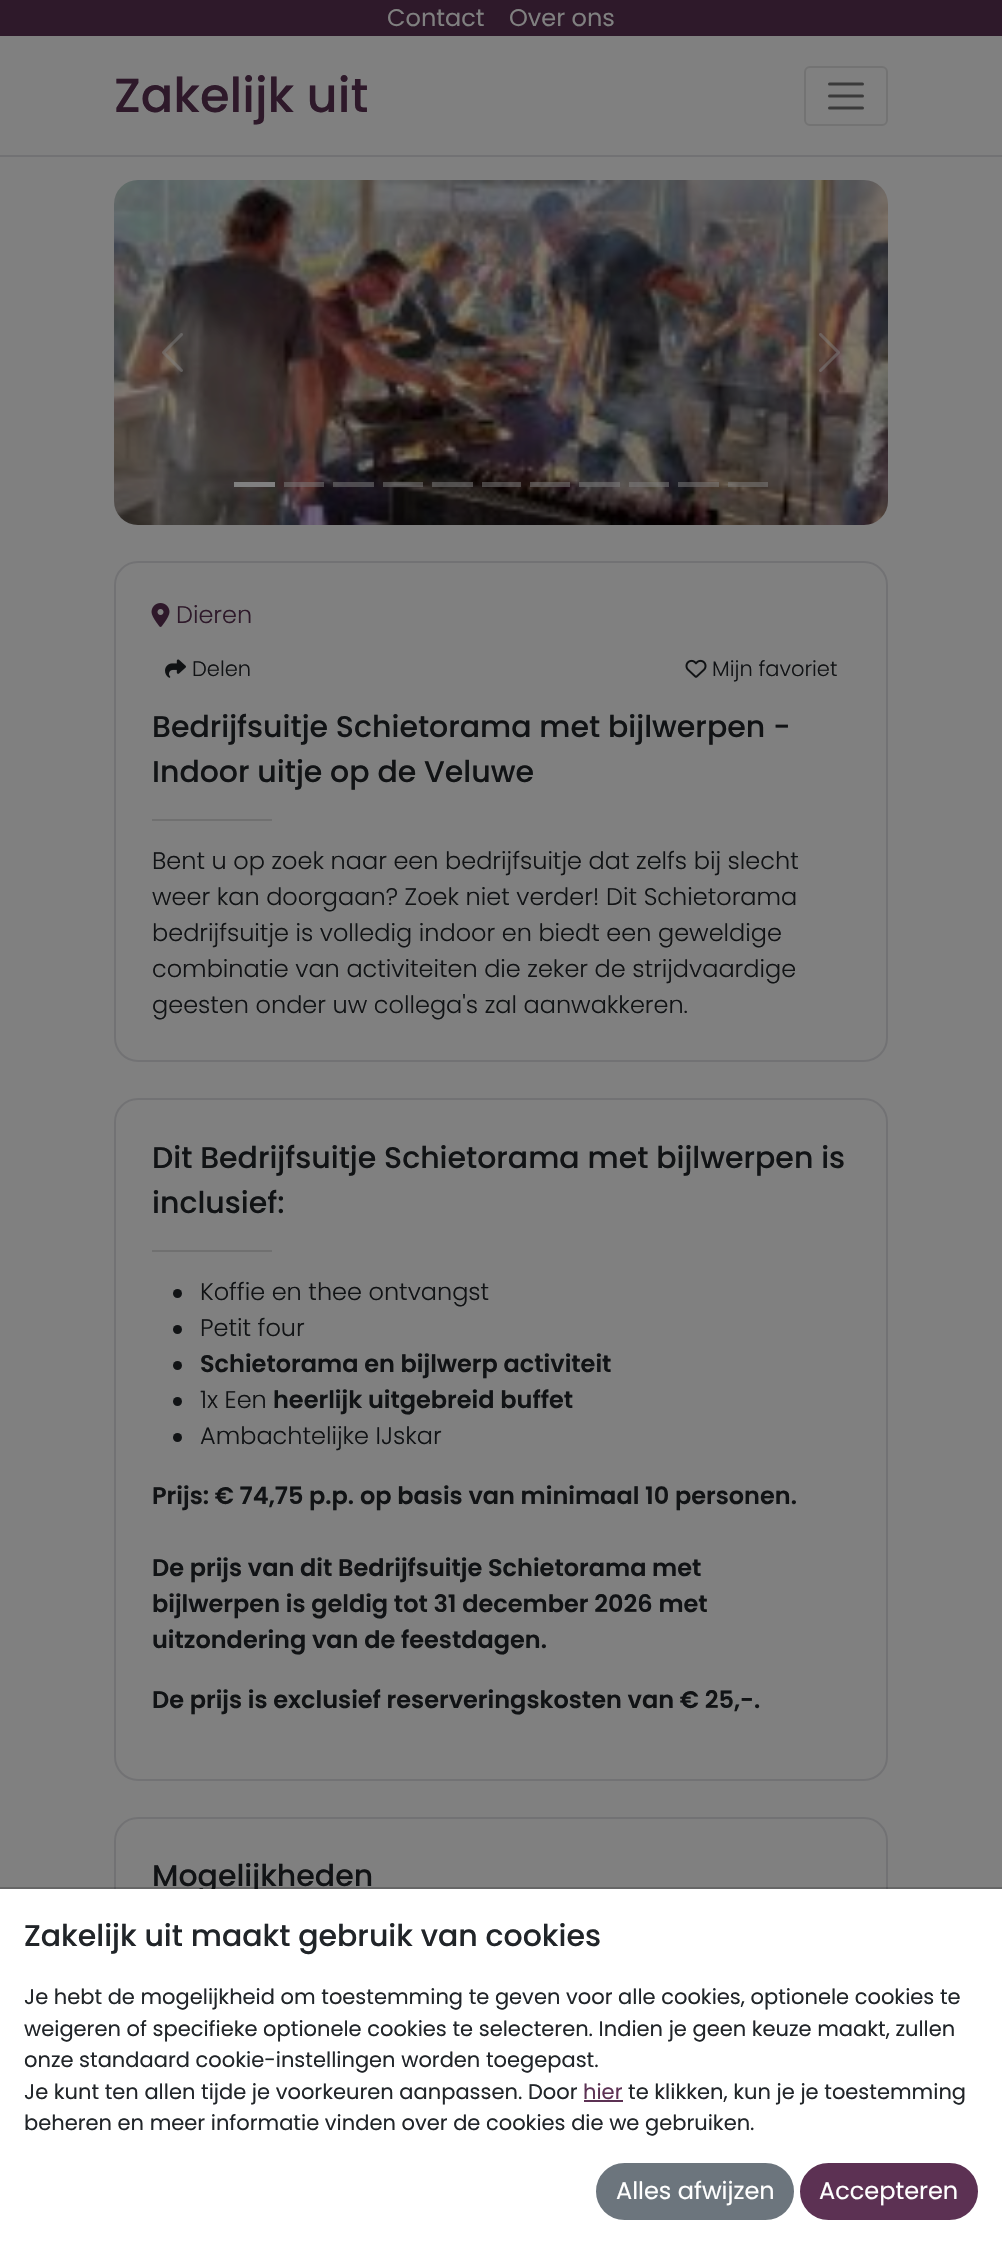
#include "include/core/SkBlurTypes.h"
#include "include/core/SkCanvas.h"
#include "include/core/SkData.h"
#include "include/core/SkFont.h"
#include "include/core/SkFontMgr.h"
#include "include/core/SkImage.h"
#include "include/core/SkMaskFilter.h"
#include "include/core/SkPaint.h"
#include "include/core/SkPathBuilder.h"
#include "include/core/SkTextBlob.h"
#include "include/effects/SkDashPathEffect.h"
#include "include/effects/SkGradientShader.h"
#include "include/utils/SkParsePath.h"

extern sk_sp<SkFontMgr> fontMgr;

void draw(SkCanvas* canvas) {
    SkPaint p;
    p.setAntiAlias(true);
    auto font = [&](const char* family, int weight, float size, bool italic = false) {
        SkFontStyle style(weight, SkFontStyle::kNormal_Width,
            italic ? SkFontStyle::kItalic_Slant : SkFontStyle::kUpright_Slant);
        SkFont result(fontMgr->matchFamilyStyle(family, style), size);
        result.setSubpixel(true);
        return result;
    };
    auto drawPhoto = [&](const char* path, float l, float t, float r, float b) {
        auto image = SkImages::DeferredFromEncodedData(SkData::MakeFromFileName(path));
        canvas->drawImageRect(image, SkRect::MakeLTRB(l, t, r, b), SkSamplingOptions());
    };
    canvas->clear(0xFF808080);
    p.setColor(0xFF2E192A);
    canvas->drawRect(SkRect::MakeLTRB(0, 0, 1002, 36), p);
    auto font1 = font("Poppins", 400, 24);
    p.setColor(0xFF808080);
    canvas->drawString("Contact", 387, 26, font1, p);
    canvas->drawString("Over ons", 509, 26, font1, p);
    p.setColor(0xFF727274);
    canvas->drawRect(SkRect::MakeLTRB(0, 155, 1002, 157), p);
    auto font2 = font("Poppins", 500, 48);
    p.setColor(0xFF2E192A);
    canvas->drawString("Zakelijk uit", 114, 112, font2, p);
    p.setStyle(SkPaint::kStroke_Style);
    p.setStrokeWidth(2);
    p.setColor(0xFF737373);
    canvas->drawRoundRect(SkRect::MakeLTRB(805, 67, 887, 125), 5, 5, p);
    p.setStrokeWidth(3);
    p.setStrokeCap(SkPaint::kRound_Cap);
    p.setColor(0xFF3A3A3A);
    canvas->drawPath(SkPathBuilder().moveTo(829.5f, 84).lineTo(862.5f, 84).moveTo(829.5f, 96).lineTo(862.5f, 96).moveTo(829.5f, 108).lineTo(862.5f, 108).detach(), p);
    drawPhoto("media/1.png", 114, 180, 888, 525);
    drawPhoto("media/2.png", 162, 333, 183, 372);
    drawPhoto("media/3.png", 819, 333, 840, 372);
    p.setStyle(SkPaint::kFill_Style);
    {
        const struct { float l, t, r, b; SkColor color; } items[] = {
            {234, 482, 275, 487, 0xFF808080},
            {284, 482, 324, 487, 0x80808080},
            {333, 482, 374, 487, 0x80808080},
            {383, 482, 423, 487, 0x80808080},
            {432, 482, 473, 487, 0x80808080},
            {482, 482, 521, 487, 0x80808080},
            {530, 482, 570, 487, 0x80808080},
            {579, 482, 620, 487, 0x80808080},
            {629, 482, 669, 487, 0x80808080},
            {678, 482, 719, 487, 0x80808080},
            {728, 482, 768, 487, 0x80808080},
        };
        for (auto [l, t, r, b, color] : items) {
            p.setColor(color);
            canvas->drawRect(SkRect::MakeLTRB(l, t, r, b), p);
        }
    }
    p.setStyle(SkPaint::kStroke_Style);
    p.setStrokeWidth(2);
    p.setStrokeCap(SkPaint::kButt_Cap);
    p.setColor(0xFF727274);
    canvas->drawRoundRect(SkRect::MakeLTRB(115, 562, 887, 1061), 23, 23, p);
    drawPhoto("media/4.png", 151, 603, 170, 627);
    auto font3 = font("Poppins", 300, 24);
    p.setStyle(SkPaint::kFill_Style);
    p.setColor(0xFF2E192A);
    canvas->drawString("Dieren", 176, 623, font3, p);
    drawPhoto("media/5.png", 165, 659, 186, 678);
    auto font4 = font("Poppins", 300, 21);
    p.setColor(0xFF111315);
    canvas->drawString("Delen", 192, 676, font4, p);
    drawPhoto("media/6.png", 685, 659, 707, 678);
    canvas->drawString("Mijn favoriet", 712, 676, font4, p);
    auto font5 = font("Poppins", 500, 30);
    canvas->drawString("Bedrijfsuitje Schietorama met bijlwerpen -", 152, 737, font5, p);
    canvas->drawString("Indoor uitje op de Veluwe", 152, 782, font5, p);
    p.setColor(0xFF707070);
    canvas->drawRect(SkRect::MakeLTRB(152, 819, 272, 821), p);
    p.setColor(0xFF111315);
    {
        const struct { const char* s; float x, y; } items[] = {
            {"Bent u op zoek naar een bedrijfsuitje dat zelfs bij slecht", 152, 869},
            {"weer kan doorgaan? Zoek niet verder! Dit Schietorama", 152, 905},
            {"bedrijfsuitje is volledig indoor en biedt een geweldige", 152, 941},
            {"combinatie van activiteiten die zeker de strijdvaardige", 152, 977},
            {"geesten onder uw collega's zal aanwakkeren.", 152, 1013},
        };
        for (auto [s, x, y] : items) {
            canvas->drawString(s, x, y, font3, p);
        }
    }
    p.setStyle(SkPaint::kStroke_Style);
    p.setColor(0xFF727274);
    canvas->drawRoundRect(SkRect::MakeLTRB(115, 1099, 887, 1780), 23, 23, p);
    p.setStyle(SkPaint::kFill_Style);
    p.setColor(0xFF111315);
    canvas->drawString("Dit Bedrijfsuitje Schietorama met bijlwerpen is", 152, 1168, font5, p);
    canvas->drawString("inclusief:", 152, 1213, font5, p);
    p.setColor(0xFF707070);
    canvas->drawRect(SkRect::MakeLTRB(152, 1250, 272, 1252), p);
    p.setColor(0xFF111315);
    canvas->drawCircle(177.5f, 1293.5f, 4.5f, p);
    canvas->drawString("Koffie en thee ontvangst", 200, 1300, font3, p);
    canvas->drawCircle(177.5f, 1329.5f, 4.5f, p);
    canvas->drawString("Petit four", 200, 1336, font3, p);
    canvas->drawCircle(177.5f, 1365.5f, 4.5f, p);
    auto font6 = font("Poppins", 600, 24);
    canvas->drawString("Schietorama en bijlwerp activiteit", 200, 1372, font6, p);
    canvas->drawCircle(177.5f, 1401.5f, 4.5f, p);
    canvas->drawString("1x Een", 200, 1408, font3, p);
    canvas->drawString("heerlijk uitgebreid buffet", 273, 1408, font6, p);
    canvas->drawCircle(177.5f, 1437.5f, 4.5f, p);
    canvas->drawString("Ambachtelijke IJskar", 200, 1444, font3, p);
    {
        const struct { const char* s; float x, y; } items[] = {
            {"Prijs: € 74,75 p.p.", 152, 1504},
            {"op basis van minimaal 10 personen.", 360, 1504},
            {"De prijs van dit Bedrijfsuitje Schietorama met", 152, 1576},
            {"bijlwerpen is geldig tot 31 december 2026 met", 152, 1612},
            {"uitzondering van de feestdagen.", 152, 1648},
            {"De prijs is exclusief reserveringskosten van € 25,-.", 152, 1708},
        };
        for (auto [s, x, y] : items) {
            canvas->drawString(s, x, y, font6, p);
        }
    }
    p.setStyle(SkPaint::kStroke_Style);
    p.setColor(0xFF727274);
    canvas->drawRoundRect(SkRect::MakeLTRB(115, 1818, 887, 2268), 23, 23, p);
    p.setStyle(SkPaint::kFill_Style);
    p.setColor(0xFF111315);
    canvas->drawString("Mogelijkheden", 152, 1886, font5, p);
    p.setColor(0xFFFFFFFF);
    canvas->drawRect(SkRect::MakeLTRB(0, 1889, 1002, 2243), p);
    p.setColor(0x33000000);
    canvas->drawRect(SkRect::MakeLTRB(0, 1887, 1002, 1889), p);
    p.setColor(0xFF212529);
    canvas->drawString("Zakelijk uit maakt gebruik van cookies", 24, 1946, font5, p);
    auto font7 = font("Poppins", 400, 21);
    {
        const struct { const char* s; float x, y; } items[] = {
            {"Je hebt de mogelijkheid om toestemming te geven voor alle cookies, optionele cookies te", 24, 2004},
            {"weigeren of specifieke optionele cookies te selecteren. Indien je geen keuze maakt, zullen", 24, 2036},
            {"onze standaard cookie-instellingen worden toegepast.", 24, 2067},
            {"Je kunt ten allen tijde je voorkeuren aanpassen. Door", 24, 2099},
        };
        for (auto [s, x, y] : items) {
            canvas->drawString(s, x, y, font7, p);
        }
    }
    p.setColor(0xFF5C3153);
    canvas->drawString("hier", 583, 2099, font7, p);
    canvas->drawRect(SkRect::MakeLTRB(584, 2100, 623, 2102), p);
    p.setColor(0xFF212529);
    canvas->drawString("te klikken, kun je je toestemming", 628, 2099, font7, p);
    canvas->drawString("beheren en meer informatie vinden over de cookies die we gebruiken.", 24, 2130, font7, p);
    p.setColor(0xFF6C757D);
    canvas->drawRoundRect(SkRect::MakeLTRB(597, 2164, 793, 2219), 27.5f, 27.5f, p);
    p.setStyle(SkPaint::kStroke_Style);
    canvas->drawRoundRect(SkRect::MakeLTRB(597, 2164, 793, 2219), 27.5f, 27.5f, p);
    p.setStyle(SkPaint::kFill_Style);
    p.setColor(0xFFFFFFFF);
    canvas->drawString("Alles afwijzen", 616, 2199, font1, p);
    p.setColor(0xFF5C3153);
    canvas->drawRoundRect(SkRect::MakeLTRB(801, 2164, 977, 2219), 27.5f, 27.5f, p);
    p.setStyle(SkPaint::kStroke_Style);
    canvas->drawRoundRect(SkRect::MakeLTRB(801, 2164, 977, 2219), 27.5f, 27.5f, p);
    p.setStyle(SkPaint::kFill_Style);
    p.setColor(0xFFFFFFFF);
    canvas->drawString("Accepteren", 819, 2199, font1, p);
}
